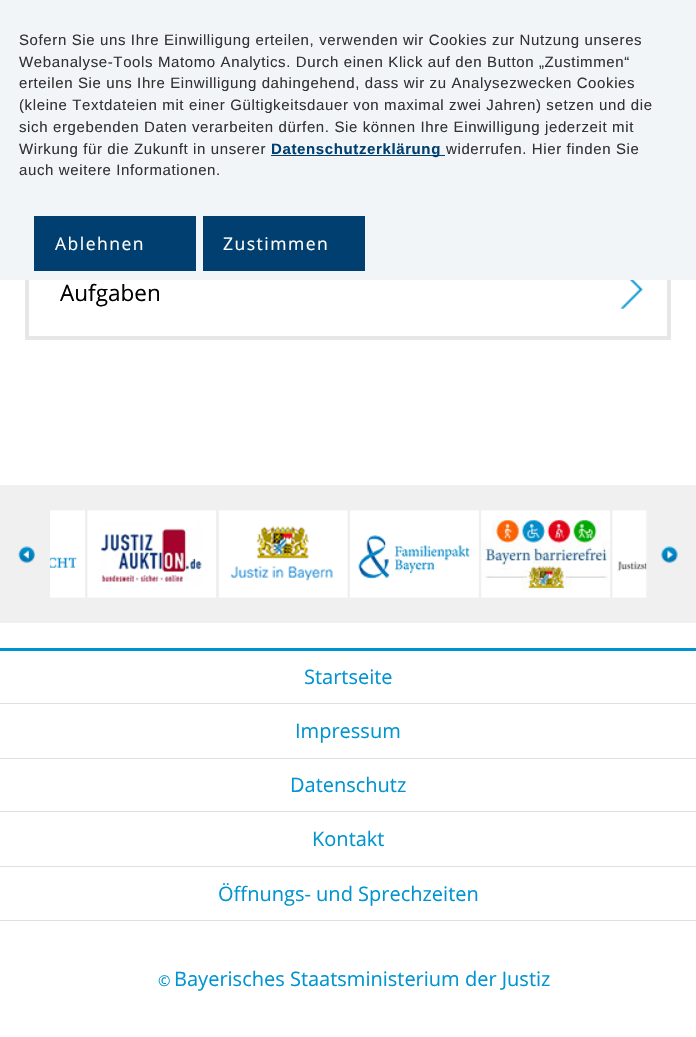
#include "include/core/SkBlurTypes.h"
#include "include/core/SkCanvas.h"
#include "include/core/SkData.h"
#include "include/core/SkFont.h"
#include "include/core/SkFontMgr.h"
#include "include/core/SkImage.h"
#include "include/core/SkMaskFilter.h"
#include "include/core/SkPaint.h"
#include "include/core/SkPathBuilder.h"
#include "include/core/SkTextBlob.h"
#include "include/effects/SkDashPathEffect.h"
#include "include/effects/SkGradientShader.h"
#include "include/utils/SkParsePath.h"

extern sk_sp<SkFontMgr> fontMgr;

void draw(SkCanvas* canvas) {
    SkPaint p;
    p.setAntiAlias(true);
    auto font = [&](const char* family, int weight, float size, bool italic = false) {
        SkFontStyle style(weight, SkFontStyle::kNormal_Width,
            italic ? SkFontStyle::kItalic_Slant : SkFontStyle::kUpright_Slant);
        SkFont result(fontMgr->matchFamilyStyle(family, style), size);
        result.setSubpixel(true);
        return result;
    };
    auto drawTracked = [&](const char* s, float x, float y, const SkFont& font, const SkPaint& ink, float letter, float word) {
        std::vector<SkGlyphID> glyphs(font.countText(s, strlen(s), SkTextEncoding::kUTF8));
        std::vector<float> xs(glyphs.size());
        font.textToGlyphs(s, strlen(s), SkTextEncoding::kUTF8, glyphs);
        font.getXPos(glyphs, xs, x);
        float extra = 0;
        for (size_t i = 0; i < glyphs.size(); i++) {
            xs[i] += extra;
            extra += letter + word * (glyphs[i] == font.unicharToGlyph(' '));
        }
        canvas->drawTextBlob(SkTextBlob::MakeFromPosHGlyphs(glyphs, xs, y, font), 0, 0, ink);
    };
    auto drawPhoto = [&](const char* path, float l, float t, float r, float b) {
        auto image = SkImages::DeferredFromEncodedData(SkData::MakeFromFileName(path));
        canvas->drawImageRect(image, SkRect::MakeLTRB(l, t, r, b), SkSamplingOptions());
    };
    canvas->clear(0xFFFFFFFF);
    drawPhoto("media/1.png", 620, 280, 643, 309);
    p.setStyle(SkPaint::kStroke_Style);
    p.setStrokeWidth(4);
    p.setColor(0xFFE7E7E7);
    canvas->drawRect(SkRect::MakeLTRB(27, 247, 669, 338), p);
    p.setStyle(SkPaint::kFill_Style);
    p.setColor(0xFFF2F5F8);
    canvas->drawRect(SkRect::MakeLTRB(0, 0, 696, 280), p);
    auto font1 = font("Liberation Sans", 400, 15);
    p.setColor(0xFF333333);
    {
        const struct { const char* s; float x, y; } items[] = {
            {"Sofern Sie uns Ihre Einwilligung erteilen, verwenden wir Cookies zur Nutzung unseres", 19, 45},
            {"Webanalyse-Tools Matomo Analytics. Durch einen Klick auf den Button „Zustimmen“", 19, 67},
            {"erteilen Sie uns Ihre Einwilligung dahingehend, dass wir zu Analysezwecken Cookies", 19, 88},
            {"(kleine Textdateien mit einer Gültigkeitsdauer von maximal zwei Jahren) setzen und die", 19, 110},
            {"sich ergebenden Daten verarbeiten dürfen. Sie können Ihre Einwilligung jederzeit mit", 19, 132},
            {"Wirkung für die Zukunft in unserer", 19, 154},
        };
        for (auto [s, x, y] : items) {
            drawTracked(s, x, y, font1, p, 0.62f, 0);
        }
    }
    p.setColor(0xFF003F6F);
    canvas->drawRect(SkRect::MakeLTRB(271, 155, 445, 156), p);
    auto font2 = font("Liberation Sans", 700, 15);
    drawTracked("Datenschutzerklärung", 271, 154, font2, p, 0.62f, 0);
    p.setColor(0xFF333333);
    drawTracked("widerrufen. Hier finden Sie", 446, 154, font1, p, 0.62f, 0);
    drawTracked("auch weitere Informationen.", 19, 175, font1, p, 0.62f, 0);
    p.setColor(0xFF003F6F);
    canvas->drawRect(SkRect::MakeLTRB(34, 216, 196, 271), p);
    auto font3 = font("Open Sans", 400, 17.5f);
    p.setColor(0xFFFFFFFF);
    drawTracked("Ablehnen", 55, 250, font3, p, 1.5f, 0);
    p.setColor(0xFF003F6F);
    canvas->drawRect(SkRect::MakeLTRB(203, 216, 365, 271), p);
    p.setColor(0xFFFFFFFF);
    drawTracked("Zustimmen", 223, 250, font3, p, 1.5f, 0);
    auto font4 = font("Open Sans", 400, 22.5f);
    p.setColor(0xFF000000);
    canvas->drawString("Aufgaben", 60, 301, font4, p);
    p.setColor(0xFFF0F0F0);
    canvas->drawRect(SkRect::MakeLTRB(0, 485, 696, 623), p);
    drawPhoto("media/2.png", 18, 546, 35, 563);
    drawPhoto("media/3.png", 50, 510, 85, 598);
    drawPhoto("media/4.png", 87, 510, 216, 598);
    drawPhoto("media/5.png", 219, 510, 348, 598);
    drawPhoto("media/6.png", 350, 510, 479, 598);
    drawPhoto("media/7.png", 481, 510, 610, 598);
    drawPhoto("media/8.png", 612, 510, 647, 598);
    drawPhoto("media/9.png", 661, 546, 678, 563);
    p.setColor(0xFF0091D0);
    canvas->drawRect(SkRect::MakeLTRB(0, 648, 696, 651), p);
    p.setColor(0xFFE0E0E0);
    canvas->drawRect(SkRect::MakeLTRB(0, 703, 696, 704), p);
    auto font5 = font("Open Sans", 400, 20);
    p.setColor(0xFF0094D0);
    canvas->drawString("Startseite", 304, 684, font5, p);
    p.setColor(0xFFE0E0E0);
    canvas->drawRect(SkRect::MakeLTRB(0, 758, 696, 759), p);
    p.setColor(0xFF0094D0);
    canvas->drawString("Impressum", 295, 738, font5, p);
    p.setColor(0xFFE0E0E0);
    canvas->drawRect(SkRect::MakeLTRB(0, 811, 696, 812), p);
    p.setColor(0xFF0094D0);
    canvas->drawString("Datenschutz", 290, 792, font5, p);
    p.setColor(0xFFE0E0E0);
    canvas->drawRect(SkRect::MakeLTRB(0, 866, 696, 867), p);
    p.setColor(0xFF0094D0);
    canvas->drawString("Kontakt", 312, 846, font5, p);
    p.setColor(0xFFE0E0E0);
    canvas->drawRect(SkRect::MakeLTRB(0, 920, 696, 921), p);
    p.setColor(0xFF0094D0);
    canvas->drawString("Öffnungs- und Sprechzeiten", 218, 901, font5, p);
    auto font6 = font("Open Sans", 400, 15);
    canvas->drawString("©", 158, 986, font6, p);
    canvas->drawString("Bayerisches Staatsministerium der Justiz", 174, 986, font5, p);
}
